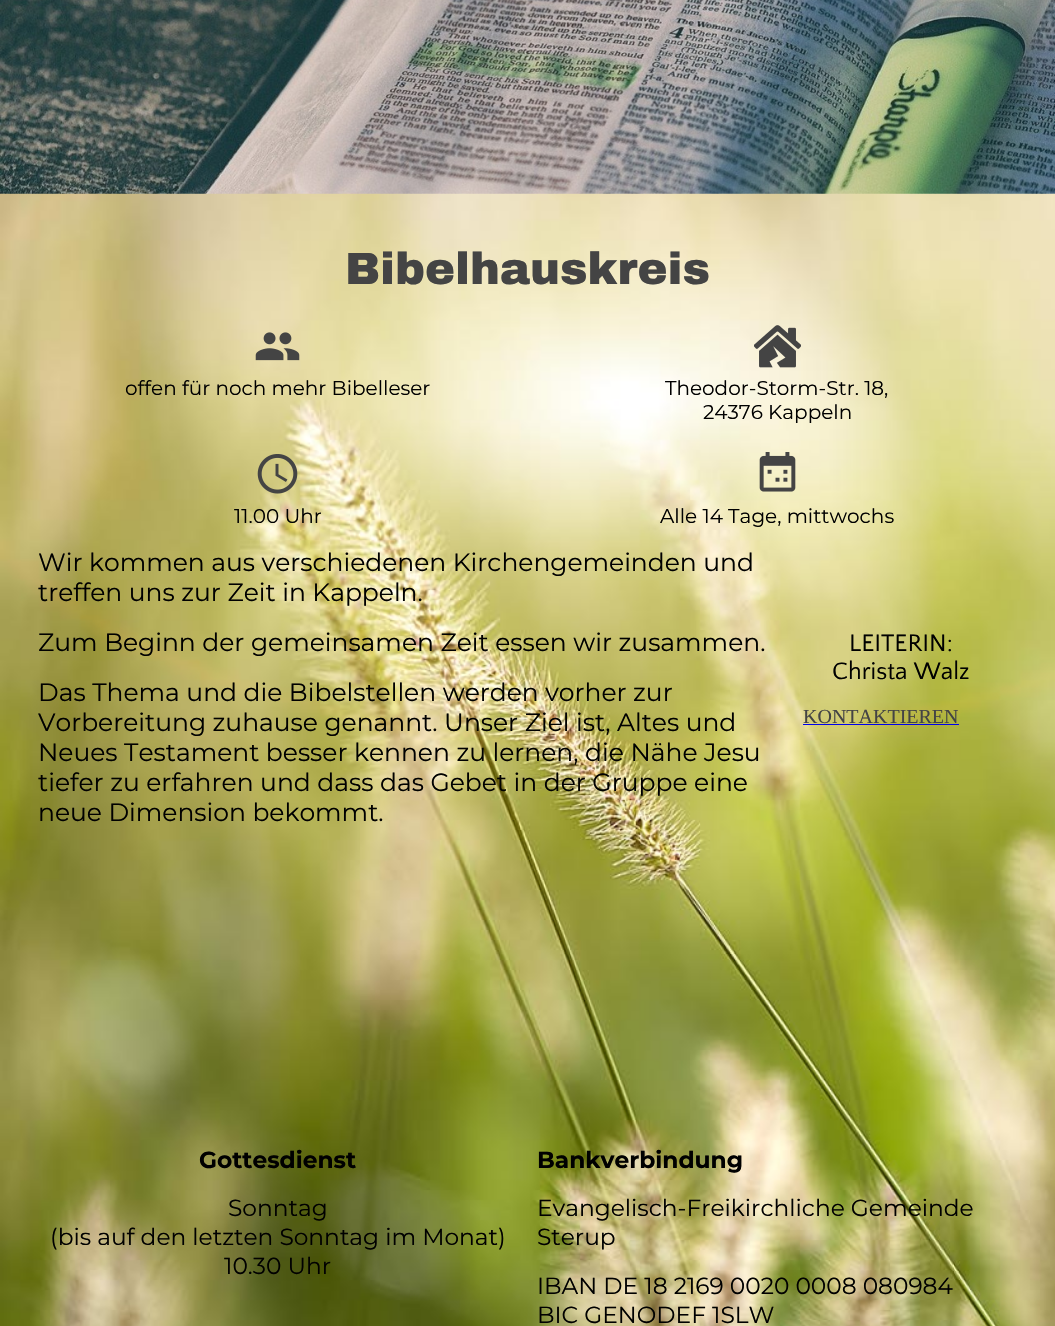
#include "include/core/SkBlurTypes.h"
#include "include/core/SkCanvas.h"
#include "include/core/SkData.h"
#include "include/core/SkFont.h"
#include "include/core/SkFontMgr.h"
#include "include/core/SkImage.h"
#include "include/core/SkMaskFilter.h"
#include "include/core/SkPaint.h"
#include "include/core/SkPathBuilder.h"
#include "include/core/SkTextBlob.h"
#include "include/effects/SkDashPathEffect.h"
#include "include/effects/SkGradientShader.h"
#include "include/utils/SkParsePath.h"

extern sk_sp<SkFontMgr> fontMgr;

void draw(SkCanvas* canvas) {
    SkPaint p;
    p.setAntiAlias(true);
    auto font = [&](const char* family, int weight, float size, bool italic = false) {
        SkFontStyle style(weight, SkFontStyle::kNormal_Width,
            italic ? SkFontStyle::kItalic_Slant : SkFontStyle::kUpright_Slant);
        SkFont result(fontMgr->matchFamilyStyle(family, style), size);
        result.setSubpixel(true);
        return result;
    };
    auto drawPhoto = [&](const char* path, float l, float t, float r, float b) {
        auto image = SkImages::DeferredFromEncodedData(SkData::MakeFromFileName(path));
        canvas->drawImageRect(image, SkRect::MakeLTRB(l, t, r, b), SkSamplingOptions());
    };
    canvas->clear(0xFFFFFFFF);
    drawPhoto("media/1.png", 0, 193, 1055, 1326);
    drawPhoto("media/2.png", 0, 0, 1055, 194);
    auto font1 = font("Archivo Black", 400, 45);
    p.setColor(0xFF444444);
    canvas->drawString("Bibelhauskreis", 345, 284, font1, p);
    drawPhoto("media/3.png", 255, 332, 300, 361);
    auto font2 = font("Montserrat", 400, 20);
    p.setColor(0xFF000000);
    canvas->drawString("offen für noch mehr Bibelleser", 125, 395, font2, p);
    drawPhoto("media/4.png", 754, 325, 801, 368);
    canvas->drawString("Theodor-Storm-Str. 18,", 665, 395, font2, p);
    canvas->drawString("24376 Kappeln", 703, 419, font2, p);
    drawPhoto("media/5.png", 257, 454, 298, 494);
    canvas->drawString("11.00 Uhr", 234, 523, font2, p);
    drawPhoto("media/6.png", 759, 452, 796, 492);
    canvas->drawString("Alle 14 Tage, mittwochs", 660, 523, font2, p);
    auto font3 = font("Montserrat", 400, 25);
    {
        const struct { const char* s; float x, y; } items[] = {
            {"Wir kommen aus verschiedenen Kirchengemeinden und", 38, 571},
            {"treffen uns zur Zeit in Kappeln.", 38, 601},
            {"Zum Beginn der gemeinsamen Zeit essen wir zusammen.", 38, 651},
            {"Das Thema und die Bibelstellen werden vorher zur", 38, 701},
            {"Vorbereitung zuhause genannt. Unser Ziel ist, Altes und", 38, 731},
            {"Neues Testament besser kennen zu lernen, die Nähe Jesu", 38, 761},
            {"tiefer zu erfahren und dass das Gebet in der Gruppe eine", 38, 791},
            {"neue Dimension bekommt.", 38, 821},
        };
        for (auto [s, x, y] : items) {
            canvas->drawString(s, x, y, font3, p);
        }
    }
    auto font4 = font("Quattrocento Sans", 400, 25);
    canvas->drawString("LEITERIN:", 849, 651, font4, p);
    canvas->drawString("Christa Walz", 832, 679, font4, p);
    auto font5 = font("Liberation Serif", 400, 20);
    p.setColor(0xFF444444);
    canvas->drawString("KONTAKTIEREN", 803, 723, font5, p);
    p.setColor(0xFF0000EE);
    canvas->drawRect(SkRect::MakeLTRB(803, 724, 959, 725), p);
    auto font6 = font("Montserrat", 700, 23.3f);
    p.setColor(0xFF000000);
    canvas->drawString("Gottesdienst", 199, 1168, font6, p);
    auto font7 = font("Montserrat", 400, 23.3f);
    {
        const struct { const char* s; float x, y; } items[] = {
            {"Sonntag", 228, 1216},
            {"(bis auf den letzten Sonntag im Monat)", 50, 1245},
            {"10.30 Uhr", 224, 1274},
        };
        for (auto [s, x, y] : items) {
            canvas->drawString(s, x, y, font7, p);
        }
    }
    canvas->drawString("Bankverbindung", 537, 1168, font6, p);
    {
        const struct { const char* s; float x, y; } items[] = {
            {"Evangelisch-Freikirchliche Gemeinde", 537, 1216},
            {"Sterup", 537, 1245},
            {"IBAN DE 18 2169 0020 0008 080984", 537, 1294},
            {"BIC GENODEF 1SLW", 537, 1323},
        };
        for (auto [s, x, y] : items) {
            canvas->drawString(s, x, y, font7, p);
        }
    }
}
